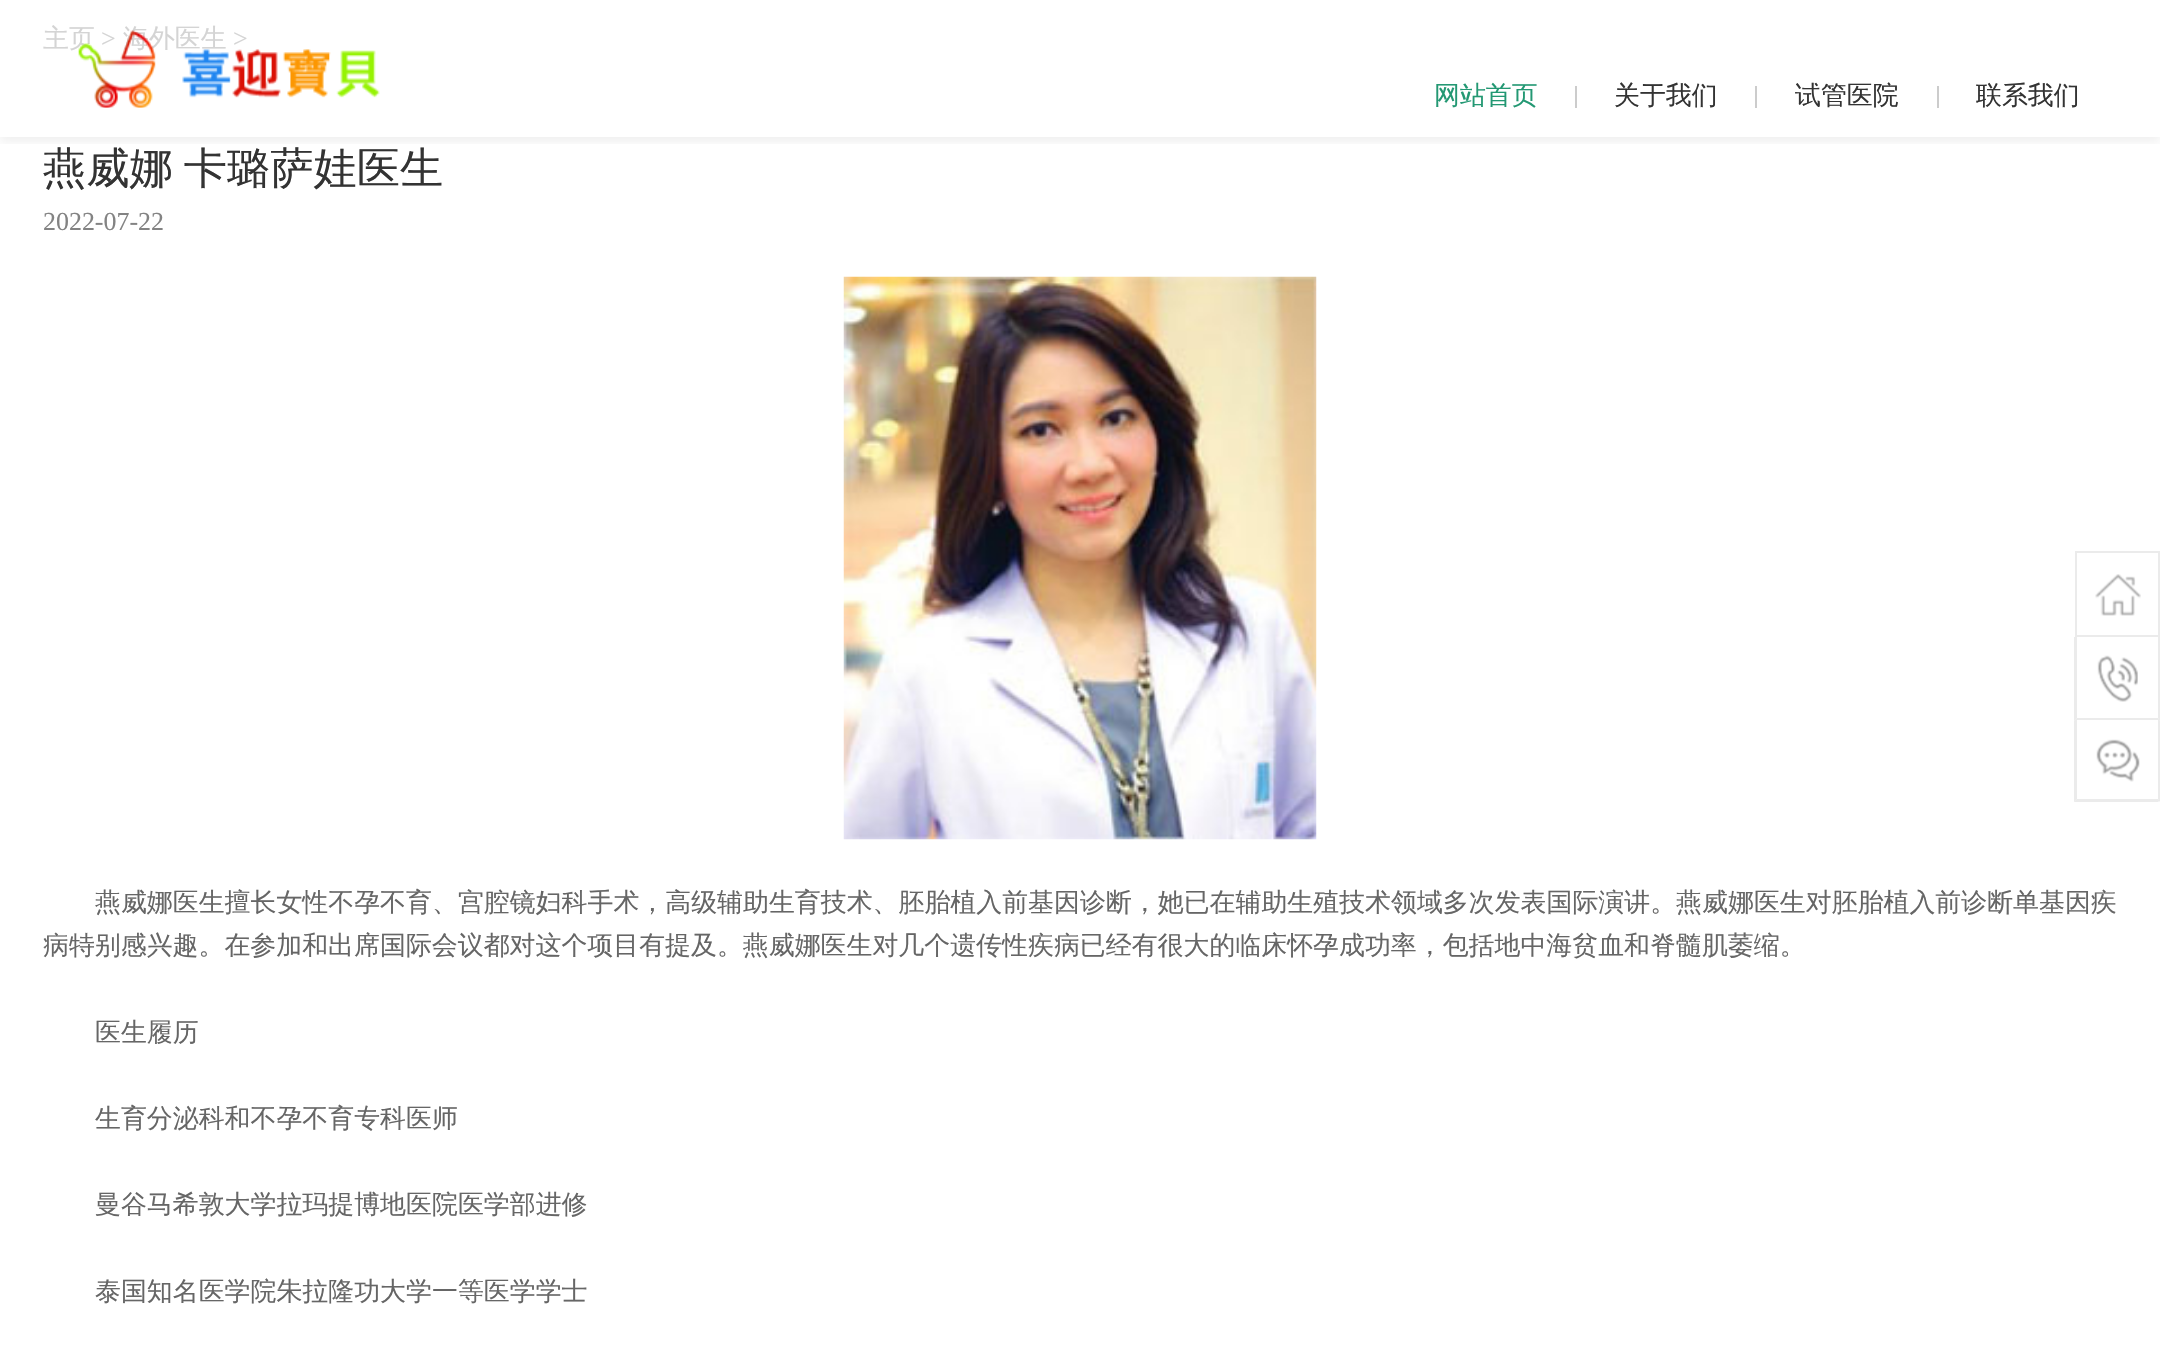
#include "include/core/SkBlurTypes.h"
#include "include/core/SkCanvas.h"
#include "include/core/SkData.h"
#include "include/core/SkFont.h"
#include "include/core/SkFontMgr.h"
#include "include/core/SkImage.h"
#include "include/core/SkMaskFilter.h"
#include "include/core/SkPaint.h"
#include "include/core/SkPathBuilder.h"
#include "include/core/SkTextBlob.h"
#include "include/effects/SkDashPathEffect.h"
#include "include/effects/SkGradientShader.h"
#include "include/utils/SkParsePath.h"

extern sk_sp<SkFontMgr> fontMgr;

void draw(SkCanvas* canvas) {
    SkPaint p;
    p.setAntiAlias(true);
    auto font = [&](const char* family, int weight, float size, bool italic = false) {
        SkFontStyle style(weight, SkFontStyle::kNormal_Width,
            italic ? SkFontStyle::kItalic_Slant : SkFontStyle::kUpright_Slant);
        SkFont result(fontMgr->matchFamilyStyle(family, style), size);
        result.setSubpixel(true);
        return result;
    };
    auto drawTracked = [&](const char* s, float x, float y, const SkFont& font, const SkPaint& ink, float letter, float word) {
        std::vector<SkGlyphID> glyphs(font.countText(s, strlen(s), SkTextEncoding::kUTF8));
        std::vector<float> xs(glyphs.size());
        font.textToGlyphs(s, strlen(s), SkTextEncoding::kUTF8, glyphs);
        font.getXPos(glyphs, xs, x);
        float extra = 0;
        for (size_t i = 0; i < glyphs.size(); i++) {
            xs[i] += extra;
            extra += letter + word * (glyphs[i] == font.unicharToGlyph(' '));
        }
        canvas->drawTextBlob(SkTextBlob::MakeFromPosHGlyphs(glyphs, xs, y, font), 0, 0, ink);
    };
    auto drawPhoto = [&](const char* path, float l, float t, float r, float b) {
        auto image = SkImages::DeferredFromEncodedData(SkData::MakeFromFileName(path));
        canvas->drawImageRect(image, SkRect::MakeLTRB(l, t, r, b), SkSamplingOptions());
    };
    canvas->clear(0xFFFFFFFF);
    auto font1 = font("WenQuanYi Zen Hei", 500, 25.92f);
    p.setColor(0xFFD4D4D4);
    canvas->drawString("主页", 43, 47, font1, p);
    auto font2 = font("Liberation Serif", 400, 25.92f);
    canvas->drawString(">", 101, 47, font2, p);
    canvas->drawString("海外医生", 123, 47, font1, p);
    canvas->drawString(">", 233, 47, font2, p);
    auto font3 = font("WenQuanYi Zen Hei", 500, 43.25f);
    p.setColor(0xFF333333);
    drawTracked("燕威娜 卡璐萨娃医生", 43, 183, font3, p, 0, -2);
    p.setColor(0xFF838383);
    canvas->drawString("2022-07-22", 43, 230, font2, p);
    drawPhoto("media/1.png", 843, 276, 1317, 840);
    p.setColor(0xFF666666);
    {
        const struct { const char* s; float x, y; } items[] = {
            {"燕威娜医生擅长女性不孕不育、宫腔镜妇科手术，高级辅助生育技术、胚胎植入前基因诊断，她已在辅助生殖技术领域多次发表国际演讲。燕威娜医生对胚胎植入前诊断单基因疾", 95, 911},
            {"病特别感兴趣。在参加和出席国际会议都对这个项目有提及。燕威娜医生对几个遗传性疾病已经有很大的临床怀孕成功率，包括地中海贫血和脊髓肌萎缩。", 43, 954},
            {"医生履历", 95, 1041},
            {"生育分泌科和不孕不育专科医师", 95, 1127},
            {"曼谷马希敦大学拉玛提博地医院医学部进修", 95, 1213},
            {"泰国知名医学院朱拉隆功大学一等医学学士", 95, 1300},
        };
        for (auto [s, x, y] : items) {
            canvas->drawString(s, x, y, font1, p);
        }
    }
    canvas->save();
    canvas->clipRect(SkRect::MakeLTRB(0, 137, 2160, 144));
    p.setColor(0x0F000000);
    p.setMaskFilter(SkMaskFilter::MakeBlur(kNormal_SkBlurStyle, 5));
    canvas->drawRect(SkRect::MakeLTRB(0, 5, 2160, 142), p);
    p.setMaskFilter(nullptr);
    canvas->restore();
    drawPhoto("media/2.png", 78, 30, 380, 108);
    p.setColor(0xFF239873);
    canvas->drawString("网站首页", 1434, 104, font1, p);
    p.setColor(0xFFCCCCCC);
    canvas->drawRect(SkRect::MakeLTRB(1575, 86, 1577, 108), p);
    p.setColor(0xFF333333);
    canvas->drawString("关于我们", 1614, 104, font1, p);
    p.setColor(0xFFCCCCCC);
    canvas->drawRect(SkRect::MakeLTRB(1755, 86, 1757, 108), p);
    p.setColor(0xFF333333);
    canvas->drawString("试管医院", 1795, 104, font1, p);
    p.setColor(0xFFCCCCCC);
    canvas->drawRect(SkRect::MakeLTRB(1937, 86, 1939, 108), p);
    p.setColor(0xFF333333);
    canvas->drawString("联系我们", 1976, 104, font1, p);
    p.setStyle(SkPaint::kStroke_Style);
    p.setStrokeWidth(2);
    p.setColor(0xFFEBEBEB);
    canvas->drawRect(SkRect::MakeLTRB(2076, 552, 2159, 636), p);
    drawPhoto("media/3.png", 2095, 574, 2141, 616);
    p.setStyle(SkPaint::kFill_Style);
    canvas->drawPath(SkPathBuilder().moveTo(2160, 637).lineTo(2160, 721).lineTo(2158, 718).lineTo(2158, 637).close().detach(), p);
    p.setColor(0xA1DFDFDF);
    canvas->drawPath(SkPathBuilder().moveTo(2160, 721).lineTo(2074, 721).lineTo(2077, 718).lineTo(2158, 718).close().detach(), p);
    canvas->drawPath(SkPathBuilder().moveTo(2074, 721).lineTo(2074, 637).lineTo(2077, 637).lineTo(2077, 718).close().detach(), p);
    drawPhoto("media/4.png", 2097, 655, 2138, 702);
    p.setColor(0xFFEBEBEB);
    canvas->drawPath(SkPathBuilder().moveTo(2160, 721).lineTo(2160, 802).lineTo(2158, 799).lineTo(2158, 721).close().detach(), p);
    p.setColor(0xA1DFDFDF);
    canvas->drawPath(SkPathBuilder().moveTo(2160, 802).lineTo(2074, 802).lineTo(2077, 799).lineTo(2158, 799).close().detach(), p);
    canvas->drawPath(SkPathBuilder().moveTo(2074, 802).lineTo(2074, 721).lineTo(2077, 721).lineTo(2077, 799).close().detach(), p);
    p.setColor(0xFFFFFFFF);
    canvas->drawRect(SkRect::MakeLTRB(2077, 720, 2158, 721), p);
    drawPhoto("media/5.png", 2096, 739, 2140, 782);
    canvas->drawPath(SkPathBuilder().moveTo(2160, 801.5f).lineTo(2160, 804).lineTo(2158, 801.5f).close().detach(), p);
}
